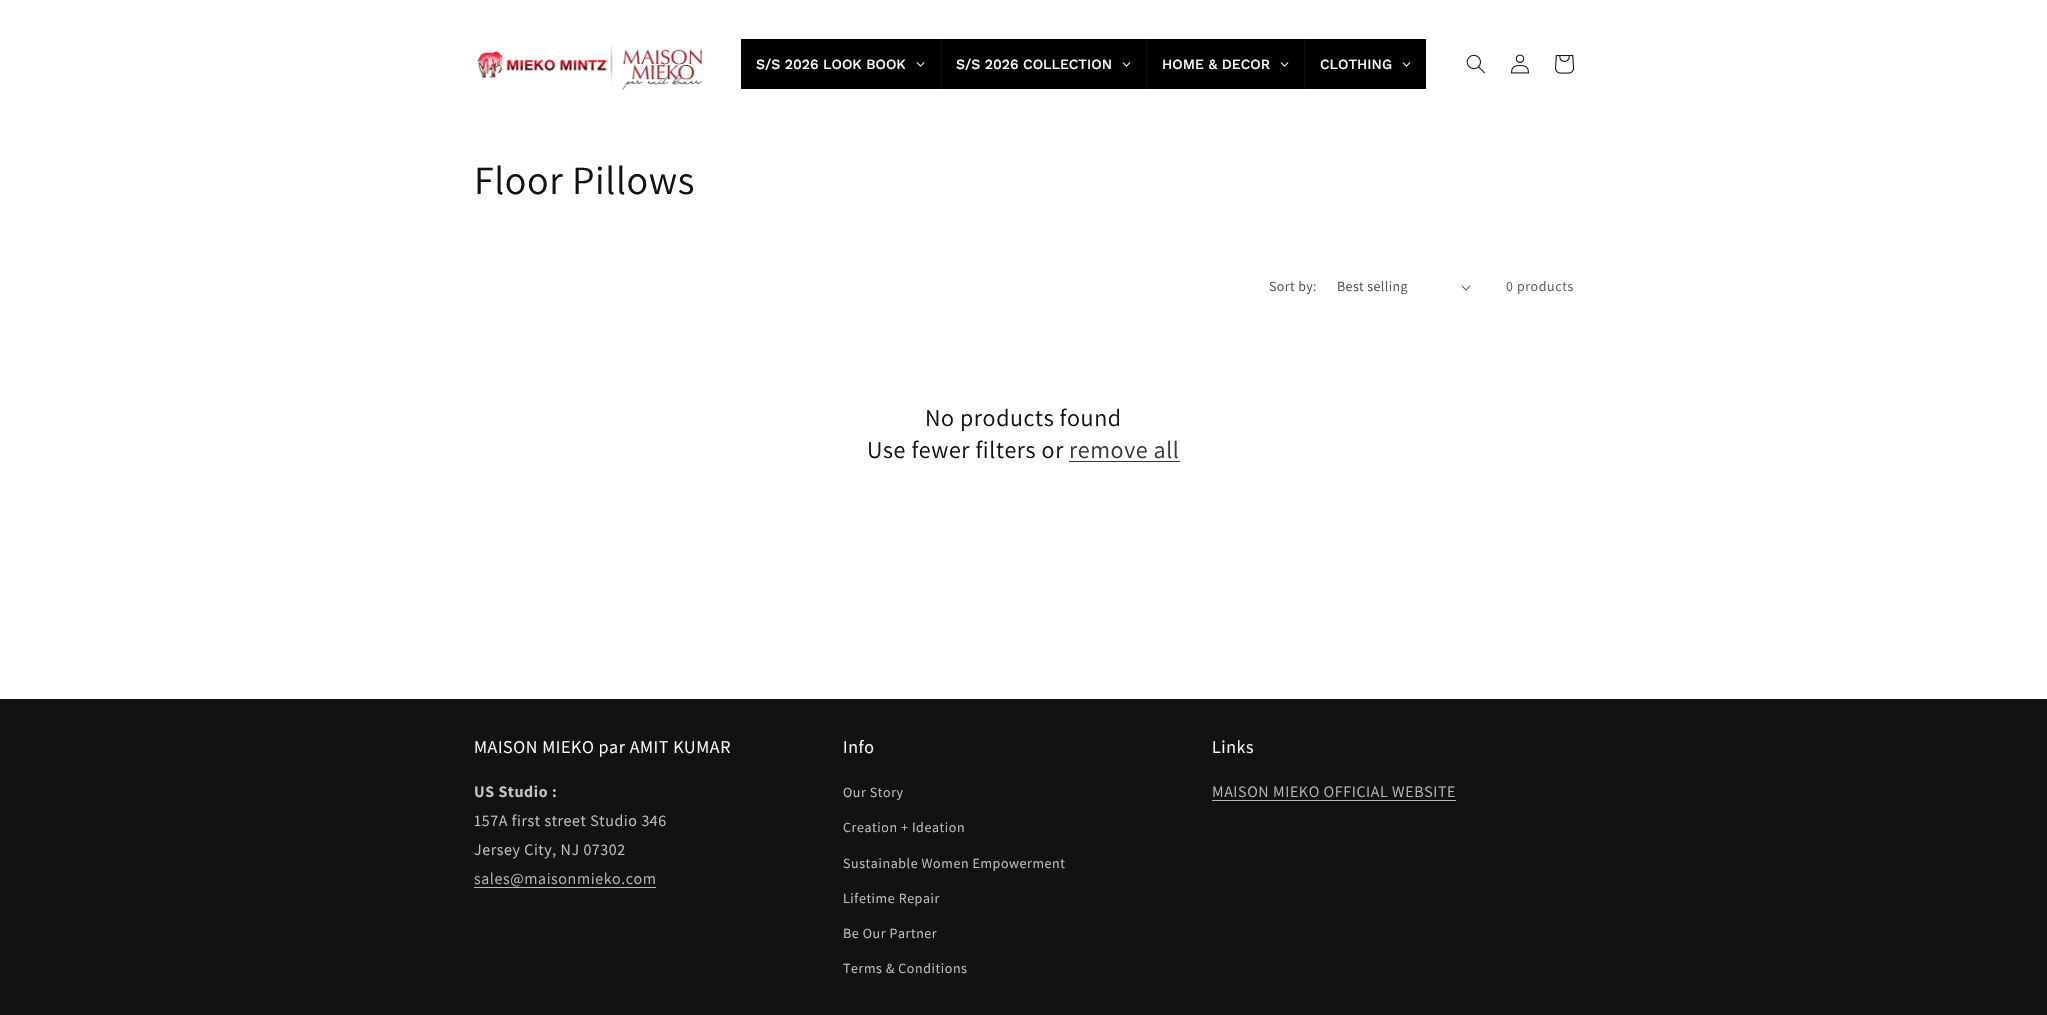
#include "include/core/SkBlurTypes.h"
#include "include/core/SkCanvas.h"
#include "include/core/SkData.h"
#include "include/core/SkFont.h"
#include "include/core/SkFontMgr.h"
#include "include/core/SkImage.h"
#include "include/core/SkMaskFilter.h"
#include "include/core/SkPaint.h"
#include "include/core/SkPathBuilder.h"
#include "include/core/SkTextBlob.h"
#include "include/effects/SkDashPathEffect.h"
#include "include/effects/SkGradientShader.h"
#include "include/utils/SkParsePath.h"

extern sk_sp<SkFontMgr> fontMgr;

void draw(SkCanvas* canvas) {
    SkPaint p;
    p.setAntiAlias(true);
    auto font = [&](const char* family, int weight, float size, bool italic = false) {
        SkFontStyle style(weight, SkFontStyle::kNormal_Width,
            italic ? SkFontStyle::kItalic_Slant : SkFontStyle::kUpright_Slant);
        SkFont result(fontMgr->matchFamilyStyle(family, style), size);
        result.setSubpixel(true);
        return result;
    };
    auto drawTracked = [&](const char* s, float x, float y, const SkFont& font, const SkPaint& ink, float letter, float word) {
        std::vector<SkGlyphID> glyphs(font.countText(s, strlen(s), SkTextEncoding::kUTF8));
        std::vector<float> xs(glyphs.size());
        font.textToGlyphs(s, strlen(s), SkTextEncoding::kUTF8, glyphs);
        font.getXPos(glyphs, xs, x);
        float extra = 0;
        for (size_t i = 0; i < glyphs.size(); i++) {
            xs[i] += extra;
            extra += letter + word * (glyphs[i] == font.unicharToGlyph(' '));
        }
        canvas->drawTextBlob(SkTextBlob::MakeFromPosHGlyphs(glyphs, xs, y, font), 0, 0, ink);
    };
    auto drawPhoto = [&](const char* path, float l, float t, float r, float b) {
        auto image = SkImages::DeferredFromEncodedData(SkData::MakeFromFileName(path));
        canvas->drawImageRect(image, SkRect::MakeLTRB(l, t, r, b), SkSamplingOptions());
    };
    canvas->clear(0xFFFFFFFF);
    drawPhoto("media/1.png", 476, 43, 703, 90);
    p.setColor(0xFF000000);
    canvas->drawRect(SkRect::MakeLTRB(741, 39, 1426, 89), p);
    auto font1 = font("Work Sans", 500, 14);
    p.setColor(0xFFFFFFFF);
    canvas->drawString("S/S 2026 LOOK BOOK", 756, 69, font1, p);
    drawPhoto("media/2.png", 916, 62, 925, 67);
    p.setColor(0xFF0F0F0F);
    canvas->drawRect(SkRect::MakeLTRB(940, 39, 941, 89), p);
    p.setColor(0xFFFFFFFF);
    canvas->drawString("S/S 2026 COLLECTION", 956, 69, font1, p);
    drawPhoto("media/2.png", 1122, 62, 1131, 67);
    p.setColor(0xFF0F0F0F);
    canvas->drawRect(SkRect::MakeLTRB(1146, 39, 1147, 89), p);
    p.setColor(0xFFFFFFFF);
    canvas->drawString("HOME & DECOR", 1162, 69, font1, p);
    drawPhoto("media/2.png", 1280, 62, 1289, 67);
    p.setColor(0xFF0F0F0F);
    canvas->drawRect(SkRect::MakeLTRB(1304, 39, 1305, 89), p);
    p.setColor(0xFFFFFFFF);
    canvas->drawString("CLOTHING", 1320, 69, font1, p);
    drawPhoto("media/2.png", 1402, 62, 1411, 67);
    drawPhoto("media/3.png", 1466, 54, 1485, 74);
    drawPhoto("media/4.png", 1511, 54, 1529, 74);
    drawPhoto("media/5.png", 1555, 55, 1575, 74);
    auto font2 = font("Assistant", 400, 40);
    p.setColor(0xFF121212);
    drawTracked("Floor Pillows", 474, 194, font2, p, 0.6f, 0);
    auto font3 = font("Assistant", 400, 14);
    p.setColor(0xFF4D4D4D);
    drawTracked("Sort by:", 1269, 291, font3, p, 0.4f, 0);
    drawTracked("Best selling", 1337, 291, font3, p, 0.4f, 0);
    drawPhoto("media/6.png", 1461, 285, 1471, 291);
    p.setColor(0xFF595959);
    drawTracked("0 products", 1506, 291, font3, p, 0.6f, 0);
    auto font4 = font("Assistant", 400, 24);
    p.setColor(0xFF121212);
    drawTracked("No products found", 925, 426, font4, p, 0.6f, 0);
    drawTracked("Use fewer filters or", 867, 458, font4, p, 0.6f, 0);
    p.setColor(0xFF363636);
    drawTracked("remove all", 1069, 458, font4, p, 0.6f, 0);
    canvas->drawRect(SkRect::MakeLTRB(1069, 461, 1180, 462), p);
    p.setColor(0xFF121212);
    canvas->drawRect(SkRect::MakeLTRB(0, 699, 2047, 1015), p);
    auto font5 = font("Assistant", 400, 18);
    p.setColor(0xFFFFFFFF);
    drawTracked("MAISON MIEKO par AMIT KUMAR", 474, 753, font5, p, 0.6f, 0);
    auto font6 = font("Assistant", 700, 16);
    p.setColor(0xFFC4C4C4);
    drawTracked("US Studio :", 474, 797, font6, p, 0.6f, 0);
    auto font7 = font("Assistant", 400, 16);
    drawTracked("157A first street Studio 346", 474, 826, font7, p, 0.6f, 0);
    drawTracked("Jersey City, NJ 07302", 474, 855, font7, p, 0.6f, 0);
    p.setColor(0xFFB8B8B8);
    drawTracked("sales@maisonmieko.com", 474, 884, font7, p, 0.6f, 0);
    canvas->drawRect(SkRect::MakeLTRB(474, 887, 656, 888), p);
    p.setColor(0xFFFFFFFF);
    drawTracked("Info", 843, 753, font5, p, 0.6f, 0);
    p.setColor(0xFFC4C4C4);
    {
        const struct { const char* s; float x, y; } items[] = {
            {"Our Story", 843, 797},
            {"Creation + Ideation", 843, 832},
            {"Sustainable Women Empowerment", 843, 868},
            {"Lifetime Repair", 843, 903},
            {"Be Our Partner", 843, 938},
            {"Terms & Conditions", 843, 973},
        };
        for (auto [s, x, y] : items) {
            drawTracked(s, x, y, font3, p, 0.6f, 0);
        }
    }
    p.setColor(0xFFFFFFFF);
    drawTracked("Links", 1212, 753, font5, p, 0.6f, 0);
    p.setColor(0xFFB8B8B8);
    drawTracked("MAISON MIEKO OFFICIAL WEBSITE", 1212, 797, font7, p, 0.6f, 0);
    canvas->drawRect(SkRect::MakeLTRB(1212, 800, 1456, 801), p);
}
